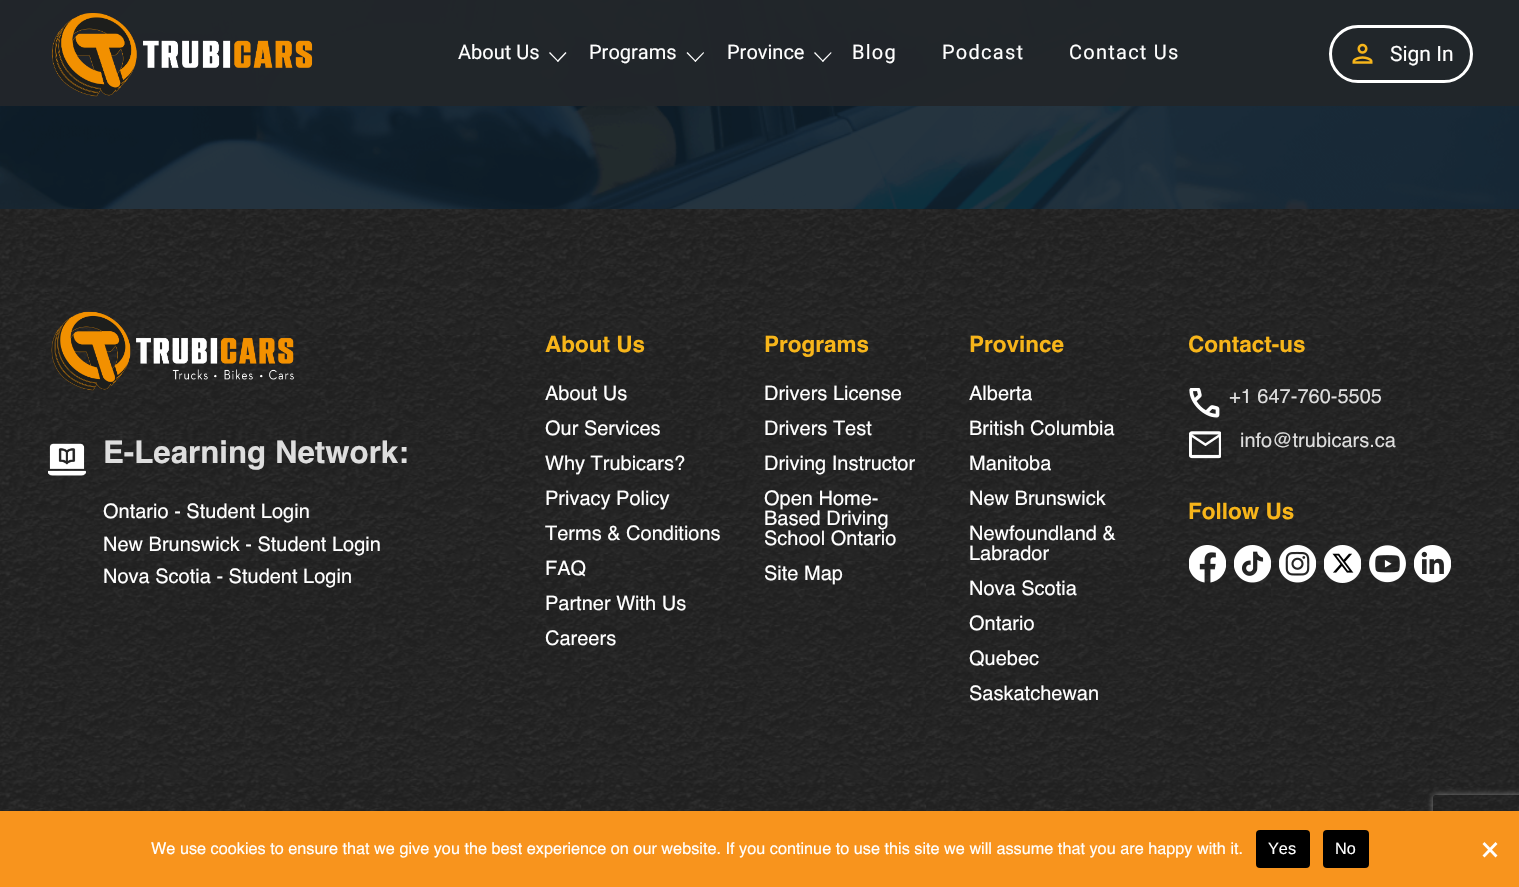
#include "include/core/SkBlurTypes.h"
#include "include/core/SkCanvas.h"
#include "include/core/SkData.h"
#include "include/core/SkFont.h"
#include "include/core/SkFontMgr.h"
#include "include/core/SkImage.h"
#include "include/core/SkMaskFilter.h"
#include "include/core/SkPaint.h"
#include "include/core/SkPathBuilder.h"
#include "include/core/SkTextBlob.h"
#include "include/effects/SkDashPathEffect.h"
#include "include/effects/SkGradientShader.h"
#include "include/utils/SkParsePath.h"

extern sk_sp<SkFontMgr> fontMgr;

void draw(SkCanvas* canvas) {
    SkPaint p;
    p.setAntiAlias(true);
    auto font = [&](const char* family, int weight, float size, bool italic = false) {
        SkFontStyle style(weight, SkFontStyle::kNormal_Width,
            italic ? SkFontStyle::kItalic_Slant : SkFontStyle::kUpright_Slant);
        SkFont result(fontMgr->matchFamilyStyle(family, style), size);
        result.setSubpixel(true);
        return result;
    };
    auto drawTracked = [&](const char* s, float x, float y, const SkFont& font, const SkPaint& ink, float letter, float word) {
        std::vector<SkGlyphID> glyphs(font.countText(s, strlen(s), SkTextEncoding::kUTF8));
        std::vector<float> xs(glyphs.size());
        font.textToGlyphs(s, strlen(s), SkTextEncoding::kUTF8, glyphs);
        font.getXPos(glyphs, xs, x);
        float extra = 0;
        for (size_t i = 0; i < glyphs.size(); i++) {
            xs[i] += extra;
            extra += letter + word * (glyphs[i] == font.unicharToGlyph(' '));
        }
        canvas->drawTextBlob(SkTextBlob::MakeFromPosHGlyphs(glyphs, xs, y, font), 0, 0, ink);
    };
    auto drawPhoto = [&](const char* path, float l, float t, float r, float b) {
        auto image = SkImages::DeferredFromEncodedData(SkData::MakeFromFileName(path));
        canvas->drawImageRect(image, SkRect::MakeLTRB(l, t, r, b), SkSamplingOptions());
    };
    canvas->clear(0xFFFFFFFF);
    drawPhoto("media/1.png", 0, 0, 1519, 209);
    p.setColor(0xF7212529);
    canvas->drawRect(SkRect::MakeLTRB(0, 0, 1519, 106), p);
    drawPhoto("media/2.png", 51, 13, 313, 97);
    auto font1 = font("Roboto", 400, 20);
    p.setColor(0xFFFFFFFF);
    canvas->drawString("About Us", 458, 59, font1, p);
    canvas->drawPath(SkPathBuilder().moveTo(557, 61).lineTo(565.5f, 52).lineTo(566.5f, 53).lineTo(558, 62).close().detach(), p);
    canvas->drawPath(SkPathBuilder().moveTo(549, 53).lineTo(550, 52).lineTo(558.5f, 61).lineTo(558, 62).close().detach(), p);
    canvas->drawString("Programs", 589, 59, font1, p);
    canvas->drawPath(SkPathBuilder().moveTo(694.5f, 61).lineTo(703.5f, 52).lineTo(704, 53).lineTo(695.5f, 62).close().detach(), p);
    canvas->drawPath(SkPathBuilder().moveTo(686.5f, 53).lineTo(687.5f, 52).lineTo(696, 61).lineTo(695.5f, 62).close().detach(), p);
    canvas->drawString("Province", 727, 59, font1, p);
    canvas->drawPath(SkPathBuilder().moveTo(822, 61).lineTo(831, 52).lineTo(831.5f, 53).lineTo(823, 62).close().detach(), p);
    canvas->drawPath(SkPathBuilder().moveTo(814, 53).lineTo(815, 52).lineTo(823.5f, 61).lineTo(823, 62).close().detach(), p);
    {
        const struct { const char* s; float x, y; } items[] = {
            {"Blog", 852, 59},
            {"Podcast", 942, 59},
            {"Contact Us", 1069, 59},
        };
        for (auto [s, x, y] : items) {
            drawTracked(s, x, y, font1, p, 1.25f, 0);
        }
    }
    p.setStyle(SkPaint::kStroke_Style);
    p.setStrokeWidth(3);
    canvas->drawRoundRect(SkRect::MakeLTRB(1330.5f, 26.5f, 1471.5f, 81.5f), 27.5f, 27.5f, p);
    drawPhoto("media/3.png", 1352, 43, 1373, 64);
    auto font2 = font("Roboto", 400, 21);
    p.setStyle(SkPaint::kFill_Style);
    canvas->drawString("Sign In", 1390, 61, font2, p);
    drawPhoto("media/4.png", 0, 209, 1519, 811);
    drawPhoto("media/5.png", 51, 311, 294, 391);
    drawPhoto("media/6.png", 48, 443, 86, 476);
    auto font3 = font("Helvetica", 700, 31.25f);
    p.setColor(0xFFDEDEDE);
    canvas->drawString("E-Learning Network:", 103, 463, font3, p);
    auto font4 = font("Helvetica", 400, 20);
    p.setColor(0xFFFFFFFF);
    {
        const struct { const char* s; float x, y; } items[] = {
            {"Ontario - Student Login", 103, 518},
            {"New Brunswick - Student Login", 103, 551},
            {"Nova Scotia - Student Login", 103, 583},
        };
        for (auto [s, x, y] : items) {
            canvas->drawString(s, x, y, font4, p);
        }
    }
    auto font5 = font("Helvetica", 700, 22.5f);
    p.setColor(0xFFF7B51A);
    canvas->drawString("About Us", 545, 352, font5, p);
    p.setColor(0xFFFFFFFF);
    {
        const struct { const char* s; float x, y; } items[] = {
            {"About Us", 545, 400},
            {"Our Services", 545, 435},
            {"Why Trubicars?", 545, 470},
            {"Privacy Policy", 545, 505},
            {"Terms & Conditions", 545, 540},
            {"FAQ", 545, 575},
            {"Partner With Us", 545, 610},
            {"Careers", 545, 645},
        };
        for (auto [s, x, y] : items) {
            canvas->drawString(s, x, y, font4, p);
        }
    }
    p.setColor(0xFFF7B51A);
    canvas->drawString("Programs", 764, 352, font5, p);
    p.setColor(0xFFFFFFFF);
    {
        const struct { const char* s; float x, y; } items[] = {
            {"Drivers License", 764, 400},
            {"Drivers Test", 764, 435},
            {"Driving Instructor", 764, 470},
            {"Open Home-", 764, 505},
            {"Based Driving", 764, 525},
            {"School Ontario", 764, 545},
            {"Site Map", 764, 580},
        };
        for (auto [s, x, y] : items) {
            canvas->drawString(s, x, y, font4, p);
        }
    }
    p.setColor(0xFFF7B51A);
    canvas->drawString("Province", 969, 352, font5, p);
    p.setColor(0xFFFFFFFF);
    {
        const struct { const char* s; float x, y; } items[] = {
            {"Alberta", 969, 400},
            {"British Columbia", 969, 435},
            {"Manitoba", 969, 470},
            {"New Brunswick", 969, 505},
            {"Newfoundland &", 969, 540},
            {"Labrador", 969, 560},
            {"Nova Scotia", 969, 595},
            {"Ontario", 969, 630},
            {"Quebec", 969, 665},
            {"Saskatchewan", 969, 700},
        };
        for (auto [s, x, y] : items) {
            canvas->drawString(s, x, y, font4, p);
        }
    }
    p.setColor(0xFFF7B51A);
    canvas->drawString("Contact-us", 1188, 352, font5, p);
    drawPhoto("media/7.png", 1189, 388, 1220, 418);
    p.setColor(0xFFDEDEDE);
    canvas->drawString("+1 647-760-5505", 1229, 403, font4, p);
    drawPhoto("media/8.png", 1189, 431, 1221, 459);
    canvas->drawString("info@trubicars.ca", 1240, 447, font4, p);
    p.setColor(0xFFF7B51A);
    canvas->drawString("Follow Us", 1188, 519, font5, p);
    drawPhoto("media/9.png", 1189, 545, 1226, 583);
    drawPhoto("media/10.png", 1234, 545, 1271, 583);
    drawPhoto("media/11.png", 1279, 545, 1316, 583);
    drawPhoto("media/12.png", 1324, 545, 1361, 583);
    drawPhoto("media/13.png", 1369, 545, 1406, 583);
    drawPhoto("media/14.png", 1414, 545, 1451, 583);
    canvas->save();
    canvas->clipPath(SkPathBuilder(SkPathFillType::kEvenOdd).moveTo(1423, 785).lineTo(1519, 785).lineTo(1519, 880).lineTo(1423, 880).close().moveTo(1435.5f, 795).lineTo(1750.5f, 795).cubicTo(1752, 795, 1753, 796, 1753, 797.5f).lineTo(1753, 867.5f).cubicTo(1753, 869, 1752, 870, 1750.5f, 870).lineTo(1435.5f, 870).cubicTo(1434, 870, 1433, 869, 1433, 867.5f).lineTo(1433, 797.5f).cubicTo(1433, 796, 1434, 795, 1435.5f, 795).close().detach(), true);
    p.setColor(0xFF808080);
    p.setMaskFilter(SkMaskFilter::MakeBlur(kNormal_SkBlurStyle, 3));
    canvas->drawRoundRect(SkRect::MakeLTRB(1433, 795, 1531, 870), 2.5f, 2.5f, p);
    p.setMaskFilter(nullptr);
    canvas->restore();
    p.setColor(0xFFF8941D);
    canvas->drawRect(SkRect::MakeLTRB(0, 811, 1519, 887), p);
    auto font6 = font("Helvetica", 400, 16.25f);
    p.setColor(0xFFFFFFFF);
    canvas->drawString("We use cookies to ensure that we give you the best experience on our website. If you continue to use this site we will assume that you are happy with it.", 151, 854, font6, p);
    p.setColor(0xFF000000);
    canvas->drawRoundRect(SkRect::MakeLTRB(1256, 830, 1310, 868), 4, 4, p);
    auto font7 = font("Liberation Sans", 400, 16.25f);
    p.setColor(0xFFFFFFFF);
    canvas->drawString("Yes", 1268, 854, font7, p);
    p.setColor(0xFF000000);
    canvas->drawRoundRect(SkRect::MakeLTRB(1323, 830, 1369, 868), 4, 4, p);
    p.setColor(0xFFFFFFFF);
    canvas->drawString("No", 1335, 854, font7, p);
    canvas->drawPath(SkPathBuilder().moveTo(1495.5f, 842).lineTo(1497.5f, 844).lineTo(1484.5f, 857.5f).lineTo(1482.5f, 855.5f).close().detach(), p);
    canvas->drawPath(SkPathBuilder().moveTo(1482.5f, 844).lineTo(1484.5f, 842).lineTo(1497.5f, 855.5f).lineTo(1495.5f, 857.5f).close().detach(), p);
}
